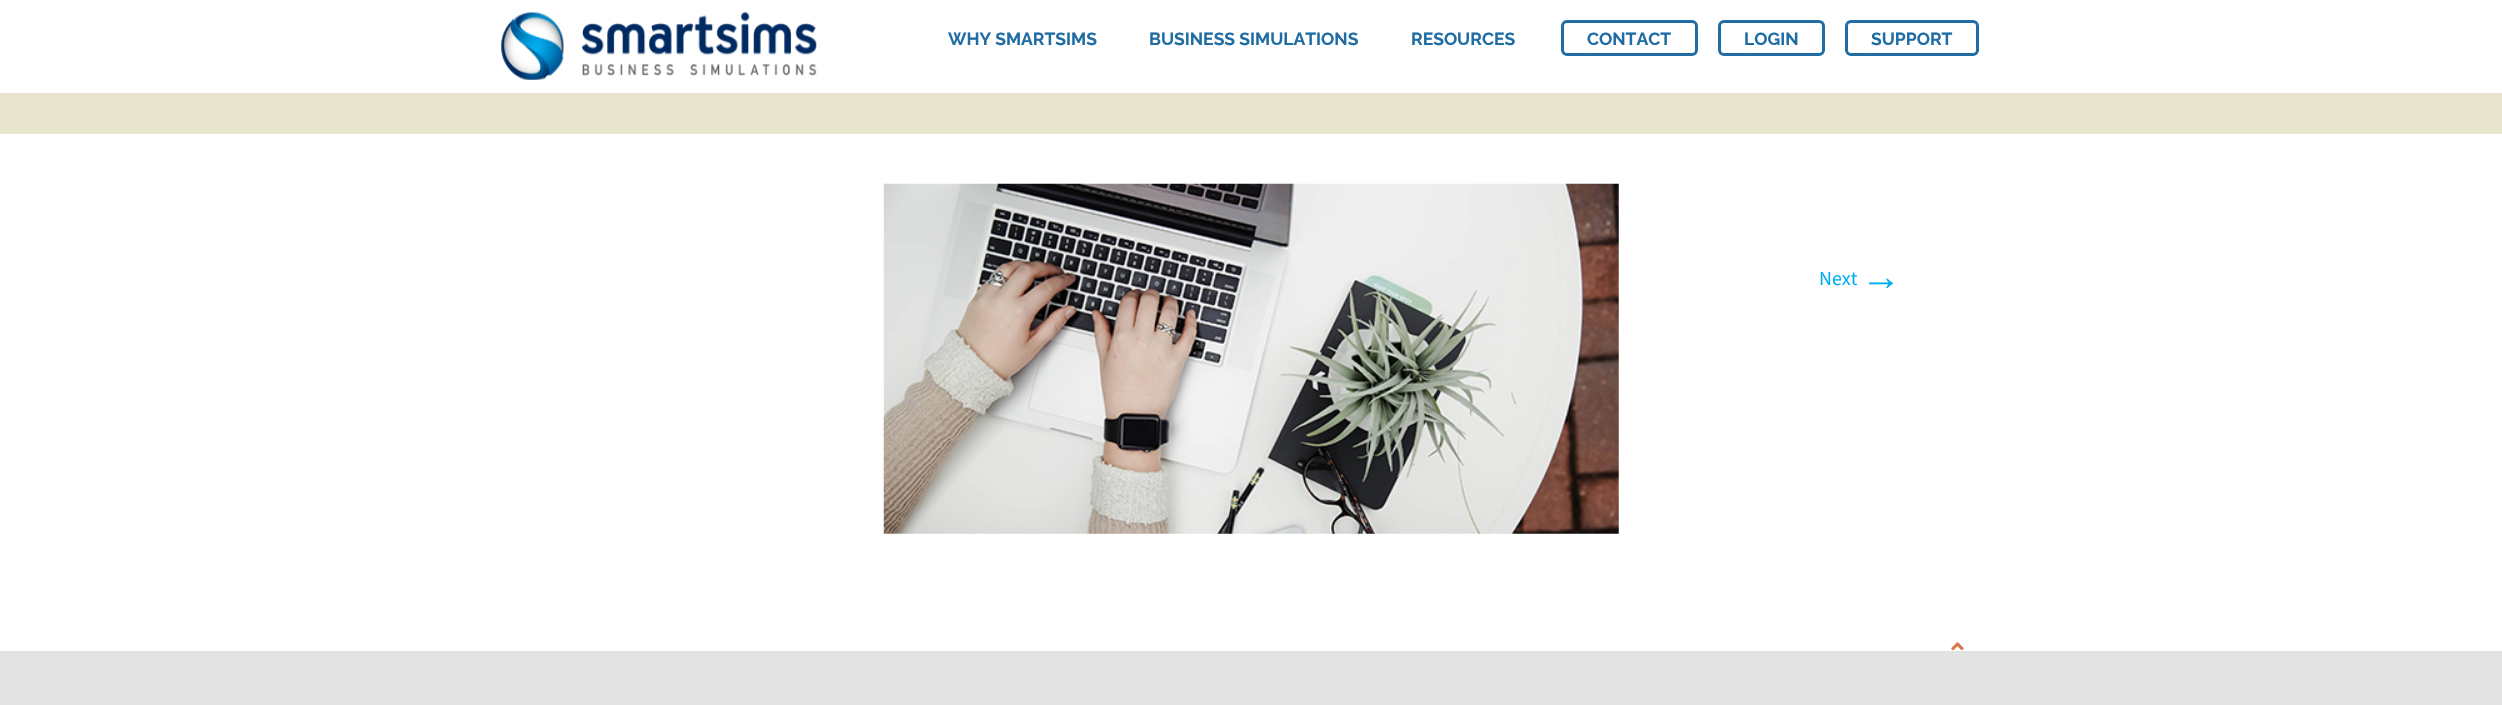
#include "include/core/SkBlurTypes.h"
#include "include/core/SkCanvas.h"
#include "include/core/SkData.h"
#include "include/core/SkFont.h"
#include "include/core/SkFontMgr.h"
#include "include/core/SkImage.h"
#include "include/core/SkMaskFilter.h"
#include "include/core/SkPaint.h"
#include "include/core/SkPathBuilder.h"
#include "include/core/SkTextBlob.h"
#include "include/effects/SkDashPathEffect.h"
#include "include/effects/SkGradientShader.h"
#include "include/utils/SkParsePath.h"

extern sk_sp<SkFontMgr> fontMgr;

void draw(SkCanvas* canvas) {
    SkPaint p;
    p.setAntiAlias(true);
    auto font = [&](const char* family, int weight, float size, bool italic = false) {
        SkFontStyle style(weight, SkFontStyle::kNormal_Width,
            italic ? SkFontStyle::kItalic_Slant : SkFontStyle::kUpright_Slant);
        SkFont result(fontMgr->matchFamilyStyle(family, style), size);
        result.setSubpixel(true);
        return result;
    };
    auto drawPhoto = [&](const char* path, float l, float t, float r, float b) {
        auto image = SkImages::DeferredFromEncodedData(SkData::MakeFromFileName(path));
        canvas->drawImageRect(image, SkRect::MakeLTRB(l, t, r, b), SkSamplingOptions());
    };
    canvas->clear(0xFFFFFFFF);
    drawPhoto("media/1.png", 501, 12, 817, 80);
    auto font1 = font("Raleway", 700, 17.5f);
    p.setColor(0xFF206DA4);
    {
        const struct { const char* s; float x, y; } items[] = {
            {"WHY SMARTSIMS", 948, 45},
            {"BUSINESS SIMULATIONS", 1149, 45},
            {"RESOURCES", 1411, 45},
        };
        for (auto [s, x, y] : items) {
            canvas->drawString(s, x, y, font1, p);
        }
    }
    p.setStyle(SkPaint::kStroke_Style);
    p.setStrokeWidth(3);
    canvas->drawRoundRect(SkRect::MakeLTRB(1562.5f, 21.5f, 1696.5f, 54.5f), 4.5f, 4.5f, p);
    p.setStyle(SkPaint::kFill_Style);
    p.setColor(0x1AFFFFFF);
    canvas->drawRect(SkRect::MakeLTRB(1588, 53, 1589, 54), p);
    p.setColor(0xFF206DA4);
    canvas->drawString("CONTACT", 1587, 45, font1, p);
    p.setStyle(SkPaint::kStroke_Style);
    canvas->drawRoundRect(SkRect::MakeLTRB(1719.5f, 21.5f, 1823.5f, 54.5f), 4.5f, 4.5f, p);
    p.setStyle(SkPaint::kFill_Style);
    p.setColor(0x1AFFFFFF);
    canvas->drawRect(SkRect::MakeLTRB(1744, 53, 1745, 54), p);
    p.setColor(0xFF206DA4);
    canvas->drawString("LOGIN", 1744, 45, font1, p);
    p.setStyle(SkPaint::kStroke_Style);
    canvas->drawRoundRect(SkRect::MakeLTRB(1846.5f, 21.5f, 1977.5f, 54.5f), 4.5f, 4.5f, p);
    p.setStyle(SkPaint::kFill_Style);
    p.setColor(0x1AFFFFFF);
    canvas->drawRect(SkRect::MakeLTRB(1871, 53, 1872, 54), p);
    p.setColor(0xFF206DA4);
    canvas->drawString("SUPPORT", 1871, 45, font1, p);
    p.setColor(0xFFE8E5CE);
    canvas->drawRect(SkRect::MakeLTRB(0, 93, 2502, 134), p);
    drawPhoto("media/2.png", 883, 183, 1619, 534);
    auto font2 = font("Source Sans Pro", 400, 20);
    p.setColor(0xFF00AEEF);
    canvas->drawString("Next", 1819, 285, font2, p);
    auto font3 = font("Liberation Sans", 400, 40);
    canvas->drawString("→", 1861, 290, font3, p);
    p.setColor(0xFFE3E3E3);
    canvas->drawRect(SkRect::MakeLTRB(0, 651, 2502, 705), p);
    drawPhoto("media/3.png", 1951, 642, 1964, 651);
}
